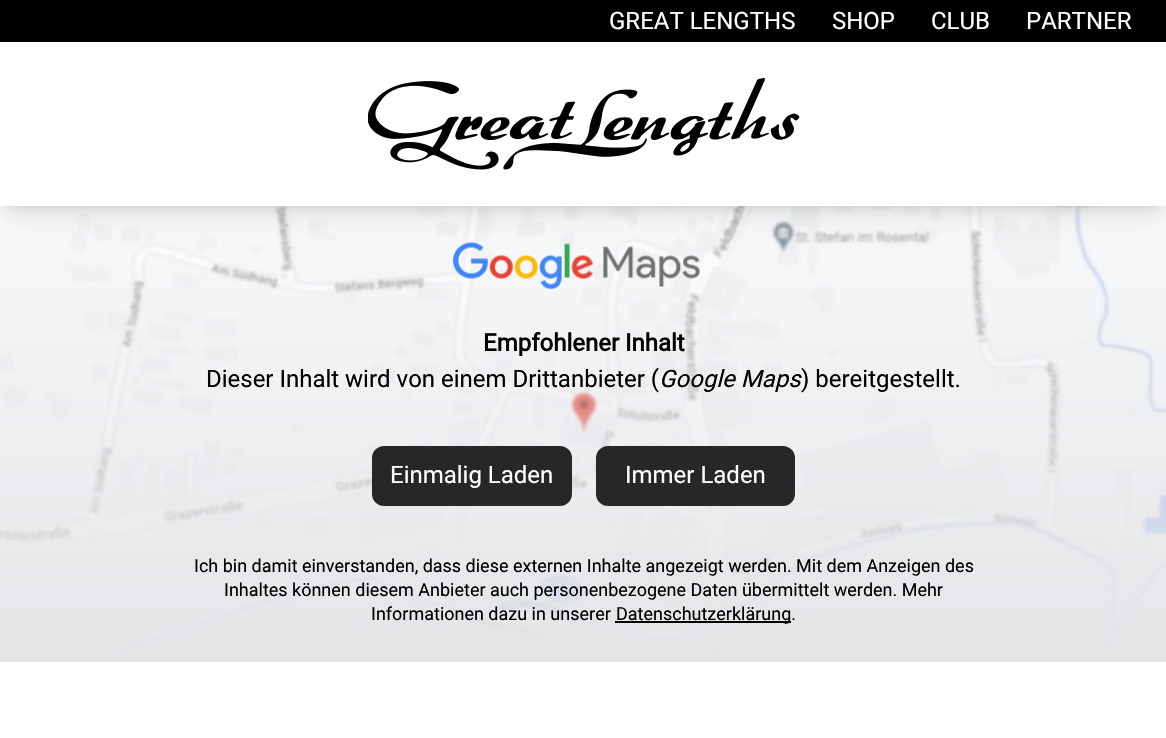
#include "include/core/SkBlurTypes.h"
#include "include/core/SkCanvas.h"
#include "include/core/SkData.h"
#include "include/core/SkFont.h"
#include "include/core/SkFontMgr.h"
#include "include/core/SkImage.h"
#include "include/core/SkMaskFilter.h"
#include "include/core/SkPaint.h"
#include "include/core/SkPathBuilder.h"
#include "include/core/SkTextBlob.h"
#include "include/effects/SkDashPathEffect.h"
#include "include/effects/SkGradientShader.h"
#include "include/utils/SkParsePath.h"

extern sk_sp<SkFontMgr> fontMgr;

void draw(SkCanvas* canvas) {
    SkPaint p;
    p.setAntiAlias(true);
    auto font = [&](const char* family, int weight, float size, bool italic = false) {
        SkFontStyle style(weight, SkFontStyle::kNormal_Width,
            italic ? SkFontStyle::kItalic_Slant : SkFontStyle::kUpright_Slant);
        SkFont result(fontMgr->matchFamilyStyle(family, style), size);
        result.setSubpixel(true);
        return result;
    };
    auto drawPhoto = [&](const char* path, float l, float t, float r, float b) {
        auto image = SkImages::DeferredFromEncodedData(SkData::MakeFromFileName(path));
        canvas->drawImageRect(image, SkRect::MakeLTRB(l, t, r, b), SkSamplingOptions());
    };
    canvas->clear(0xFF000000);
    auto font1 = font("Roboto", 400, 24);
    p.setColor(0xFFFFFFFF);
    {
        const struct { const char* s; float x, y; } items[] = {
            {"GREAT LENGTHS", 609, 29},
            {"SHOP", 832, 29},
            {"CLUB", 931, 29},
            {"PARTNER", 1026, 29},
        };
        for (auto [s, x, y] : items) {
            canvas->drawString(s, x, y, font1, p);
        }
    }
    drawPhoto("media/2.png", 0, 206, 1166, 659);
    p.setColor(0x1A000000);
    p.setMaskFilter(SkMaskFilter::MakeBlur(kNormal_SkBlurStyle, 4.5f));
    canvas->drawRect(SkRect::MakeLTRB(6, 54, 1161, 206), p);
    p.setMaskFilter(nullptr);
    {
        const SkColor colors[] = {0x00E4E4E7, 0xFFE4E4E7};
        const float stops[] = {0, 1};
        const SkPoint ends[] = {{584, 205}, {584, 662}};
        p.setShader(SkGradientShader::MakeLinear(ends, colors, stops, 2, SkTileMode::kClamp));
        p.setAlpha(255);
    }
    canvas->drawRect(SkRect::MakeLTRB(0, 224, 1166, 662), p);
    drawPhoto("media/3.png", 453, 242, 700, 290);
    p.setShader(nullptr);
    p.setColor(0x1A000000);
    p.setMaskFilter(SkMaskFilter::MakeBlur(kNormal_SkBlurStyle, 11));
    canvas->drawRect(SkRect::MakeLTRB(5, 62, 1163, 216), p);
    p.setMaskFilter(nullptr);
    p.setColor(0xFFFFFFFF);
    canvas->drawRect(SkRect::MakeLTRB(0, 42, 1166, 206), p);
    drawPhoto("media/1.png", 368, 78, 800, 170);
    auto font2 = font("Roboto", 700, 24);
    p.setColor(0xFF000000);
    canvas->drawString("Empfohlener Inhalt", 483, 351, font2, p);
    canvas->drawString("Dieser Inhalt wird von einem Drittanbieter (", 206, 387, font1, p);
    auto font3 = font("Roboto", 400, 24, true);
    canvas->drawString("Google Maps", 659, 387, font3, p);
    canvas->drawString(") bereitgestellt.", 801, 387, font1, p);
    p.setColor(0xFF27272A);
    canvas->drawRoundRect(SkRect::MakeLTRB(372, 446, 572, 506), 12, 12, p);
    p.setColor(0xFFFFFFFF);
    canvas->drawString("Einmalig Laden", 390, 483, font1, p);
    p.setColor(0xFF27272A);
    canvas->drawRoundRect(SkRect::MakeLTRB(596, 446, 795, 506), 12, 12, p);
    p.setColor(0xFFFFFFFF);
    canvas->drawString("Immer Laden", 625, 483, font1, p);
    auto font4 = font("Roboto", 400, 18);
    p.setColor(0xFF000000);
    {
        const struct { const char* s; float x, y; } items[] = {
            {"Ich bin damit einverstanden, dass diese externen Inhalte angezeigt werden. Mit dem Anzeigen des", 194, 572},
            {"Inhaltes können diesem Anbieter auch personenbezogene Daten übermittelt werden. Mehr", 224, 596},
            {"Informationen dazu in unserer", 371, 620},
        };
        for (auto [s, x, y] : items) {
            canvas->drawString(s, x, y, font4, p);
        }
    }
    canvas->drawRect(SkRect::MakeLTRB(615, 621, 791, 623), p);
    canvas->drawString("Datenschutzerklärung.", 616, 620, font4, p);
    p.setColor(0xFFFFFFFF);
    canvas->drawRect(SkRect::MakeLTRB(0, 662, 1166, 738), p);
}
